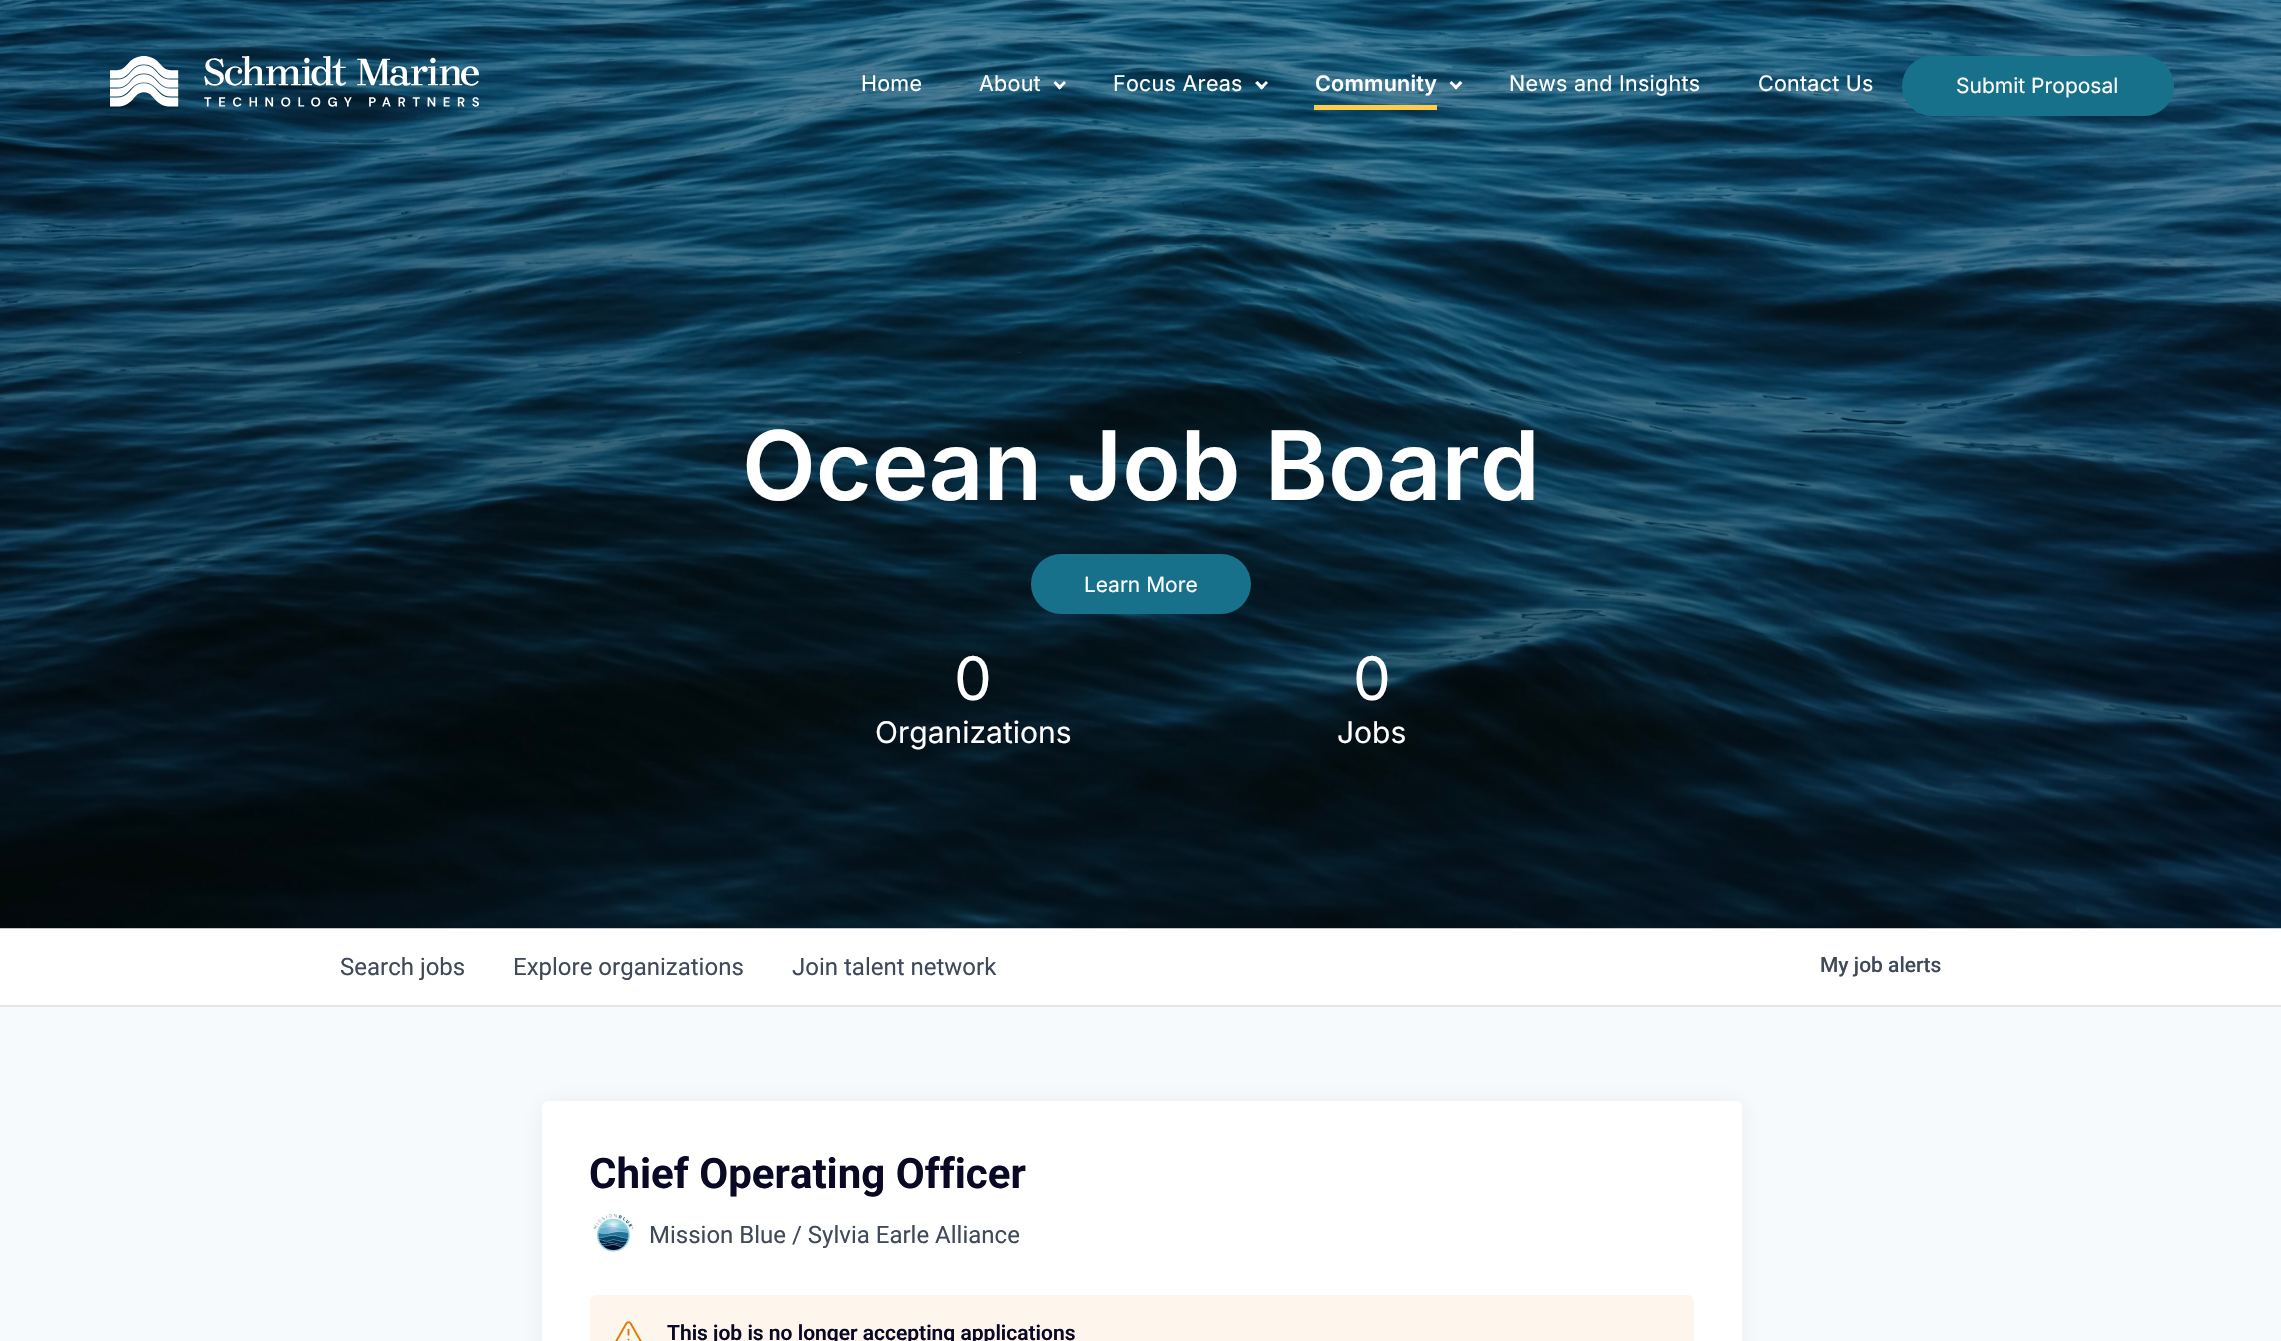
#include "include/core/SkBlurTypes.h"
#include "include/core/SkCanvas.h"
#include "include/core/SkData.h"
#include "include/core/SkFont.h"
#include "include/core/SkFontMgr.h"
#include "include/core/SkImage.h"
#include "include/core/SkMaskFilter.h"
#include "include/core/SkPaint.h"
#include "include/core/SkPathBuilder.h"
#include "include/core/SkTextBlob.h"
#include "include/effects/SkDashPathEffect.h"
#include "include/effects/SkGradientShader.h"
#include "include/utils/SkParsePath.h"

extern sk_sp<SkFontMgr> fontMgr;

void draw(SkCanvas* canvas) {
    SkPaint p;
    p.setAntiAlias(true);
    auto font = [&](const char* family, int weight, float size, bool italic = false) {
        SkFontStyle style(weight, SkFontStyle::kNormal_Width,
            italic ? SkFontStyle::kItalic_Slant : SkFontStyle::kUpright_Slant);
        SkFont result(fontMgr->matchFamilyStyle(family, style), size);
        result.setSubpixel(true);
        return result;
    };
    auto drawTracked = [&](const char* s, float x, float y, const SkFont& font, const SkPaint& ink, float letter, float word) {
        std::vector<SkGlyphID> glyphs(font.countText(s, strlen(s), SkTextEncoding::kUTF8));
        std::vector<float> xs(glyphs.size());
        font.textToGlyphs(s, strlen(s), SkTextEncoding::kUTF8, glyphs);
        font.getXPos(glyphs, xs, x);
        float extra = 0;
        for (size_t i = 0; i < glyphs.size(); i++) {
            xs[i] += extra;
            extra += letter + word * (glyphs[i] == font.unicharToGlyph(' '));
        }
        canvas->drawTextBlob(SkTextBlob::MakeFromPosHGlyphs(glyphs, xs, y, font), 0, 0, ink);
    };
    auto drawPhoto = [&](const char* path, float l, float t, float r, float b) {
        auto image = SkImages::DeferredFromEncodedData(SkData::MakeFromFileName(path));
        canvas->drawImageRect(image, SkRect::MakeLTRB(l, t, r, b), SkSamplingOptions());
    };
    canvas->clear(0xFFF7FAFC);
    p.setColor(0xFFFFFFFF);
    canvas->drawRect(SkRect::MakeLTRB(0, 928, 2281, 1005), p);
    drawPhoto("media/2.png", 0, 0, 2281, 929);
    drawPhoto("media/1.png", 110, 56, 479, 107);
    auto font1 = font("Inter", 400, 21.5f);
    drawTracked("Home", 861, 91, font1, p, 0.25f, 0);
    drawTracked("About", 979, 91, font1, p, 0.25f, 0);
    canvas->drawPath(SkPathBuilder().moveTo(1064, 81).lineTo(1066, 83).lineTo(1059.5f, 89.5f).lineTo(1057.5f, 87.5f).close().detach(), p);
    canvas->drawPath(SkPathBuilder().moveTo(1055.5f, 81).lineTo(1062, 87.5f).lineTo(1059.5f, 89.5f).lineTo(1053.5f, 83).close().detach(), p);
    drawTracked("Focus Areas", 1113, 91, font1, p, 0.25f, 0);
    canvas->drawPath(SkPathBuilder().moveTo(1266, 81).lineTo(1268, 83).lineTo(1261.5f, 89.5f).lineTo(1259.5f, 87.5f).close().detach(), p);
    canvas->drawPath(SkPathBuilder().moveTo(1257.5f, 81).lineTo(1264, 87.5f).lineTo(1261.5f, 89.5f).lineTo(1255, 83).close().detach(), p);
    p.setColor(0xFFFECC4D);
    canvas->drawRect(SkRect::MakeLTRB(1314, 105, 1437, 110), p);
    auto font2 = font("Inter", 600, 21.5f);
    p.setColor(0xFFFFFFFF);
    drawTracked("Community", 1315, 91, font2, p, 0.25f, 0);
    canvas->drawPath(SkPathBuilder().moveTo(1460, 81).lineTo(1462.5f, 83).lineTo(1456, 89.5f).lineTo(1454, 87.5f).close().detach(), p);
    canvas->drawPath(SkPathBuilder().moveTo(1451.5f, 81).lineTo(1458, 87.5f).lineTo(1456, 89.5f).lineTo(1449.5f, 83).close().detach(), p);
    drawTracked("News and Insights", 1509, 91, font1, p, 0.25f, 0);
    drawTracked("Contact Us", 1758, 91, font1, p, 0.25f, 0);
    p.setColor(0xFF18718A);
    canvas->drawRoundRect(SkRect::MakeLTRB(1902, 56, 2174, 116), 30, 30, p);
    auto font3 = font("Inter", 400, 21);
    p.setColor(0xFFFFFFFF);
    canvas->drawString("Submit Proposal", 1956, 93, font3, p);
    auto font4 = font("Inter", 600, 96);
    canvas->drawString("Ocean Job Board", 742, 500, font4, p);
    p.setColor(0xFF18718A);
    canvas->drawRoundRect(SkRect::MakeLTRB(1031, 554, 1251, 614), 30, 30, p);
    p.setColor(0xFFFFFFFF);
    canvas->drawString("Learn More", 1084, 592, font3, p);
    auto font5 = font("Inter", 400, 60);
    canvas->drawString("0", 954, 700, font5, p);
    auto font6 = font("Inter", 400, 30);
    canvas->drawString("Organizations", 875, 743, font6, p);
    canvas->drawString("0", 1353, 700, font5, p);
    canvas->drawString("Jobs", 1337, 743, font6, p);
    p.setColor(0xFFE5E5E5);
    canvas->drawPath(SkPathBuilder().moveTo(0, 1005).lineTo(0, 1007).lineTo(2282, 1007).lineTo(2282, 930).lineTo(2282, 1005).close().detach(), p);
    auto font7 = font("Roboto", 400, 24);
    p.setColor(0xFF3F495A);
    {
        const struct { const char* s; float x, y; } items[] = {
            {"Search jobs", 340, 975},
            {"Explore organizations", 513, 975},
            {"Join talent network", 792, 975},
        };
        for (auto [s, x, y] : items) {
            canvas->drawString(s, x, y, font7, p);
        }
    }
    auto font8 = font("Roboto", 500, 21);
    canvas->drawString("My job alerts", 1820, 972, font8, p);
    p.setColor(0x0F1B2432);
    p.setMaskFilter(SkMaskFilter::MakeBlur(kNormal_SkBlurStyle, 12));
    canvas->drawRoundRect(SkRect::MakeLTRB(542, 1103, 1742, 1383), 6, 6, p);
    p.setMaskFilter(nullptr);
    p.setColor(0xFFFFFFFF);
    canvas->drawRoundRect(SkRect::MakeLTRB(542, 1101, 1742, 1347), 6, 6, p);
    auto font9 = font("Roboto", 700, 42);
    p.setColor(0xFF090925);
    canvas->drawString("Chief Operating Officer", 589, 1188, font9, p);
    drawPhoto("media/3.png", 593, 1214, 634, 1252);
    p.setColor(0xFF3F495A);
    canvas->drawString("Mission Blue / Sylvia Earle Alliance", 649, 1243, font7, p);
    p.setColor(0xFFFEF5EC);
    canvas->drawRoundRect(SkRect::MakeLTRB(590, 1295, 1694, 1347), 6, 6, p);
    drawPhoto("media/4.png", 615, 1321, 642, 1341);
    auto font10 = font("Roboto", 600, 21);
    p.setColor(0xFF090925);
    canvas->drawString("This job is no longer accepting applications", 667, 1340, font10, p);
}
